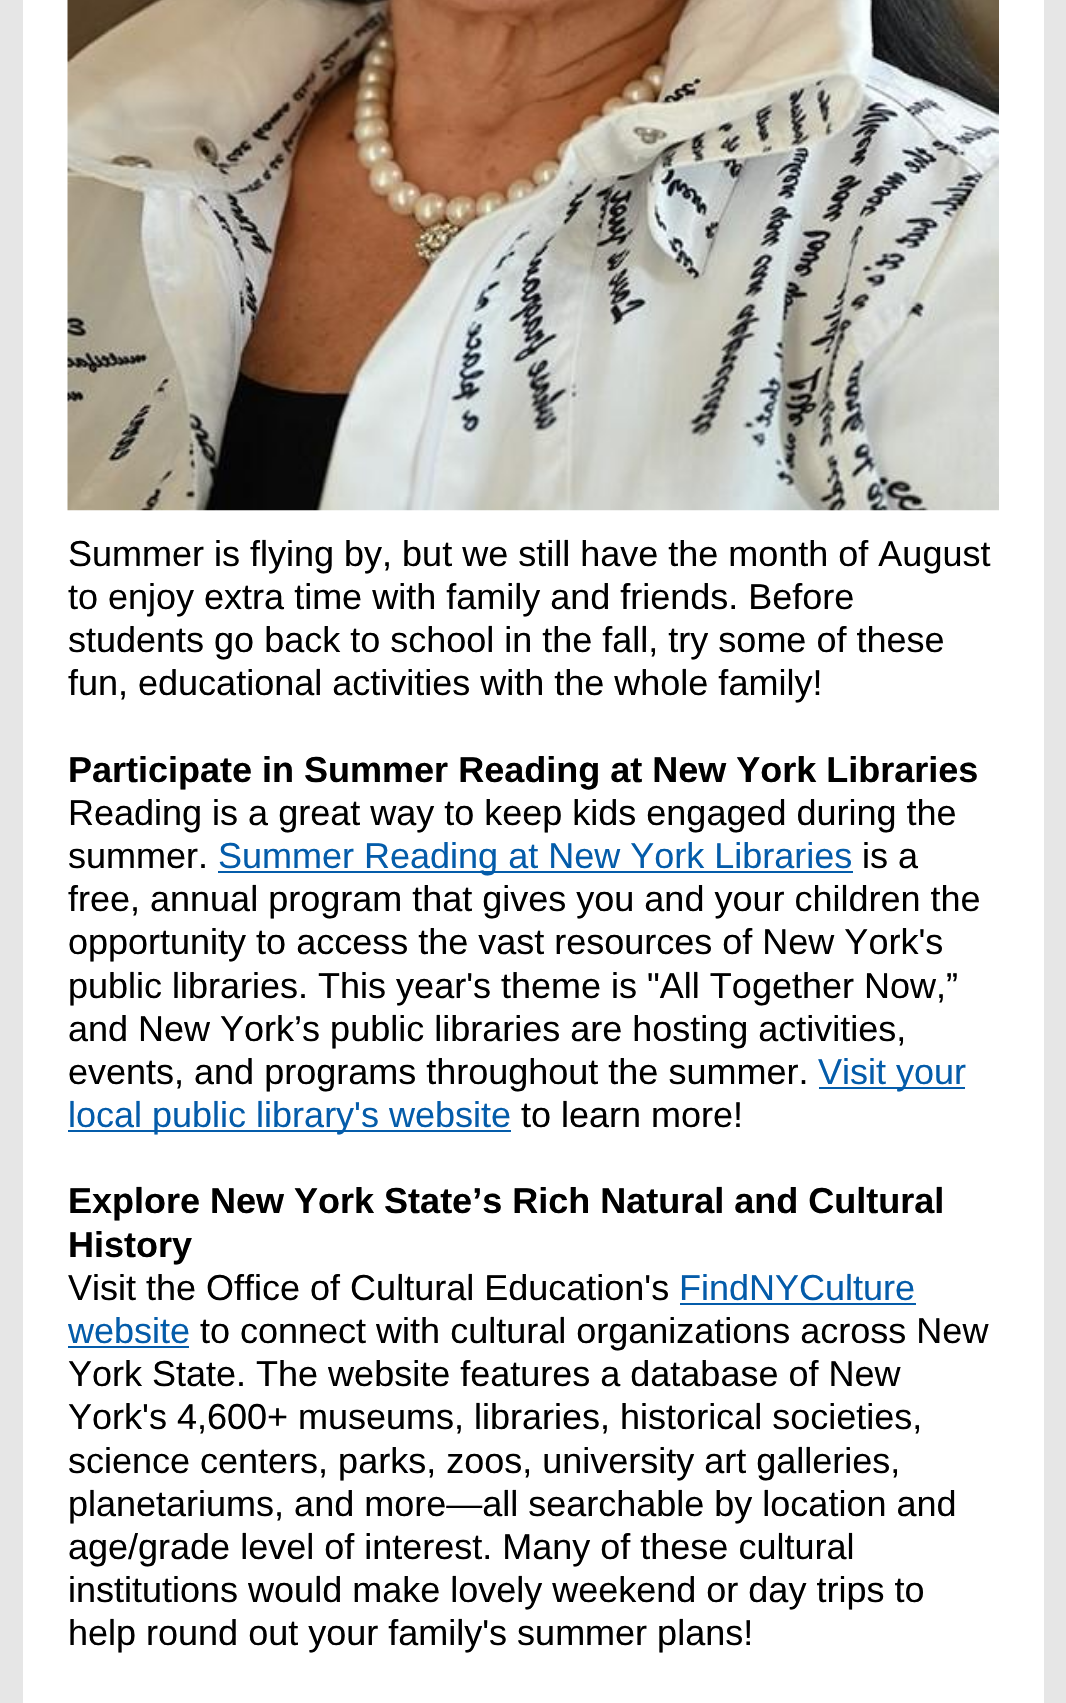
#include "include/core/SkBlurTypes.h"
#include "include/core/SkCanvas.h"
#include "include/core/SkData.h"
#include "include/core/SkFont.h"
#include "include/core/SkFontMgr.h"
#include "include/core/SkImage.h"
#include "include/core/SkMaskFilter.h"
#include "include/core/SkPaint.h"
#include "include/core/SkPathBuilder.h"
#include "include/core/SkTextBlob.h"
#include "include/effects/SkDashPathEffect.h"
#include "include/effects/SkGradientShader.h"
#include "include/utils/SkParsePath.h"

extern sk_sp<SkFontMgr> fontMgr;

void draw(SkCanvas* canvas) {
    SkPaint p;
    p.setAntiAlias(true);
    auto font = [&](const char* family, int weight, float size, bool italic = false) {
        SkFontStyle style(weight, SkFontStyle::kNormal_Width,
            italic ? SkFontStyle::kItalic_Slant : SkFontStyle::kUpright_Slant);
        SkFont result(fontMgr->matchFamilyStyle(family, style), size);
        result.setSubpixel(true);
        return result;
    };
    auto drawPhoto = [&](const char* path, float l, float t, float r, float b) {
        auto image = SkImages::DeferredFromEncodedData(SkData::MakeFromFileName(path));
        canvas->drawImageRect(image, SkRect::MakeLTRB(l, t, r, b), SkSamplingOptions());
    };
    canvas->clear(0xFFE6E6E6);
    p.setColor(0xFFFFFFFF);
    canvas->drawRect(SkRect::MakeLTRB(23, 0, 1044, 1703), p);
    drawPhoto("media/1.png", 67, 0, 999, 511);
    auto font1 = font("Liberation Sans", 400, 36);
    p.setColor(0xFF000000);
    {
        const struct { const char* s; float x, y; } items[] = {
            {"Summer is flying by, but we still have the month of August", 68, 566},
            {"to enjoy extra time with family and friends. Before", 68, 609},
            {"students go back to school in the fall, try some of these", 68, 652},
            {"fun, educational activities with the whole family!", 68, 695},
        };
        for (auto [s, x, y] : items) {
            canvas->drawString(s, x, y, font1, p);
        }
    }
    auto font2 = font("Liberation Sans", 700, 36);
    canvas->drawString("Participate in Summer Reading at New York Libraries", 68, 782, font2, p);
    canvas->drawString("Reading is a great way to keep kids engaged during the", 68, 825, font1, p);
    canvas->drawString("summer.", 68, 868, font1, p);
    p.setColor(0xFF045CAA);
    canvas->drawRect(SkRect::MakeLTRB(218, 871, 853, 873), p);
    canvas->drawString("Summer Reading at New York Libraries", 218, 868, font1, p);
    p.setColor(0xFF000000);
    {
        const struct { const char* s; float x, y; } items[] = {
            {"is a", 862, 868},
            {"free, annual program that gives you and your children the", 68, 911},
            {"opportunity to access the vast resources of New York's", 68, 954},
            {"public libraries. This year's theme is \"All Together Now,”", 68, 998},
            {"and New York’s public libraries are hosting activities,", 68, 1041},
            {"events, and programs throughout the summer.", 68, 1084},
        };
        for (auto [s, x, y] : items) {
            canvas->drawString(s, x, y, font1, p);
        }
    }
    p.setColor(0xFF045CAA);
    canvas->drawRect(SkRect::MakeLTRB(819, 1087, 965, 1089), p);
    canvas->drawString("Visit your", 818, 1084, font1, p);
    canvas->drawRect(SkRect::MakeLTRB(68, 1130, 511, 1132), p);
    canvas->drawString("local public library's website", 68, 1127, font1, p);
    p.setColor(0xFF000000);
    canvas->drawString("to learn more!", 521, 1127, font1, p);
    canvas->drawString("Explore New York State’s Rich Natural and Cultural", 68, 1213, font2, p);
    canvas->drawString("History", 68, 1257, font2, p);
    canvas->drawString("Visit the Office of Cultural Education's", 68, 1300, font1, p);
    p.setColor(0xFF045CAA);
    canvas->drawString("FindNYCulture", 679, 1300, font1, p);
    canvas->drawRect(SkRect::MakeLTRB(680, 1303, 916, 1305), p);
    canvas->drawString("website", 68, 1343, font1, p);
    canvas->drawRect(SkRect::MakeLTRB(68, 1346, 189, 1348), p);
    p.setColor(0xFF000000);
    {
        const struct { const char* s; float x, y; } items[] = {
            {"to connect with cultural organizations across New", 200, 1343},
            {"York State. The website features a database of New", 68, 1386},
            {"York's 4,600+ museums, libraries, historical societies,", 68, 1429},
            {"science centers, parks, zoos, university art galleries,", 68, 1473},
            {"planetariums, and more—all searchable by location and", 68, 1516},
            {"age/grade level of interest. Many of these cultural", 68, 1559},
            {"institutions would make lovely weekend or day trips to", 68, 1602},
            {"help round out your family's summer plans!", 68, 1645},
        };
        for (auto [s, x, y] : items) {
            canvas->drawString(s, x, y, font1, p);
        }
    }
}
